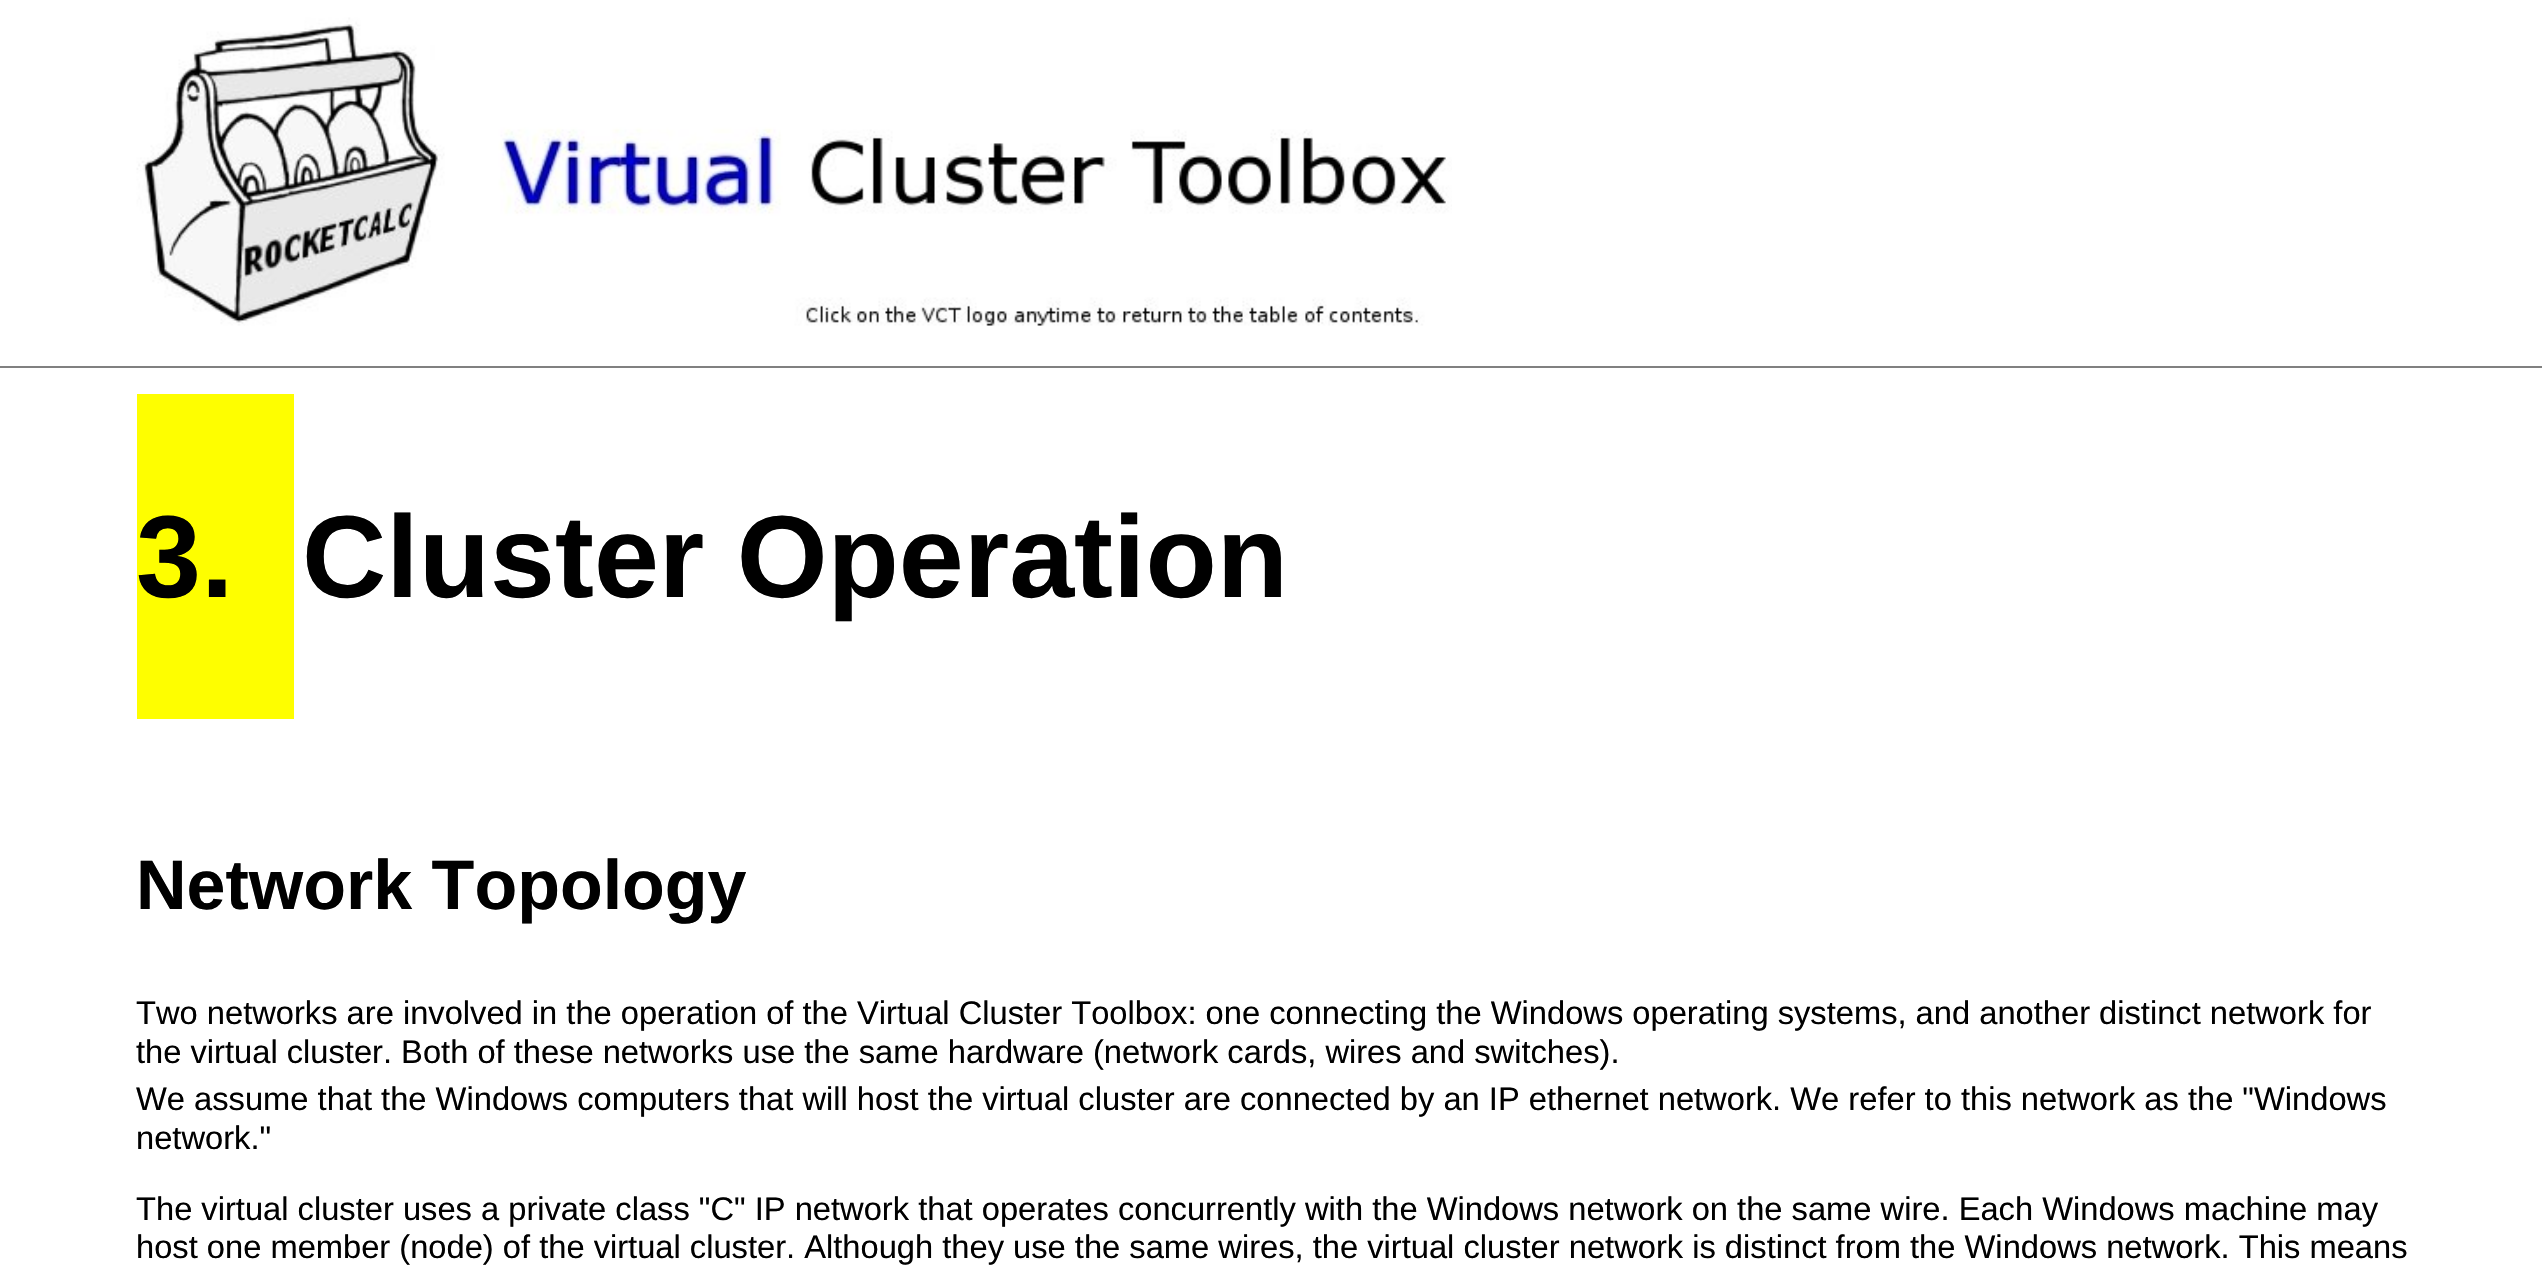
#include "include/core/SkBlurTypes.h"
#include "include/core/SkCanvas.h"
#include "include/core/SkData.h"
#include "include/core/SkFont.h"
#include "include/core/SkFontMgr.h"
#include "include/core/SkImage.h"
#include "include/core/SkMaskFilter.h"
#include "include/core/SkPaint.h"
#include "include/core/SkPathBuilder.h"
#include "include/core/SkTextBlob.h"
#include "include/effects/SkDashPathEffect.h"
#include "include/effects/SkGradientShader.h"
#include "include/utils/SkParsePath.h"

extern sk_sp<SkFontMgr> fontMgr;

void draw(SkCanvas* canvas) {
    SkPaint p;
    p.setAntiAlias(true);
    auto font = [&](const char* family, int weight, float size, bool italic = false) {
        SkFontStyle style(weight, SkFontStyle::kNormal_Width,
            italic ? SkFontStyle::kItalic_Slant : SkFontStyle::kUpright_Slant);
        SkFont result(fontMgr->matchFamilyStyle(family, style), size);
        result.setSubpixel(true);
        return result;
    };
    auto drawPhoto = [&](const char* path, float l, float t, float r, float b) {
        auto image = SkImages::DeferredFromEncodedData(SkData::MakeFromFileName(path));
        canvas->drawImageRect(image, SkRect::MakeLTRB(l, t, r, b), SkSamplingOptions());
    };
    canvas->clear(0xFFFFFFFF);
    drawPhoto("media/1.png", 136, 17, 1452, 326);
    p.setColor(0xFF808080);
    canvas->drawRect(SkRect::MakeLTRB(0, 366, 2542, 368), p);
    p.setColor(0xFFFEFE00);
    canvas->drawRect(SkRect::MakeLTRB(137, 394, 294, 719), p);
    auto font1 = font("Liberation Sans", 700, 116.75f);
    p.setColor(0xFF000000);
    canvas->drawString("3.", 136, 597, font1, p);
    canvas->drawString("Cluster Operation", 302, 597, font1, p);
    auto font2 = font("Liberation Sans", 700, 70);
    canvas->drawString("Network Topology", 136, 909, font2, p);
    auto font3 = font("Liberation Sans", 400, 32.67f);
    {
        const struct { const char* s; float x, y; } items[] = {
            {"Two networks are involved in the operation of the Virtual Cluster Toolbox: one connecting the Windows operating systems, and another distinct network for", 136, 1024},
            {"the virtual cluster. Both of these networks use the same hardware (network cards, wires and switches).", 136, 1063},
            {"We assume that the Windows computers that will host the virtual cluster are connected by an IP ethernet network. We refer to this network as the \"Windows", 136, 1110},
            {"network.\"", 136, 1149},
            {"The virtual cluster uses a private class \"C\" IP network that operates concurrently with the Windows network on the same wire. Each Windows machine may", 136, 1220},
            {"host one member (node) of the virtual cluster. Although they use the same wires, the virtual cluster network is distinct from the Windows network. This means", 136, 1258},
        };
        for (auto [s, x, y] : items) {
            canvas->drawString(s, x, y, font3, p);
        }
    }
}
